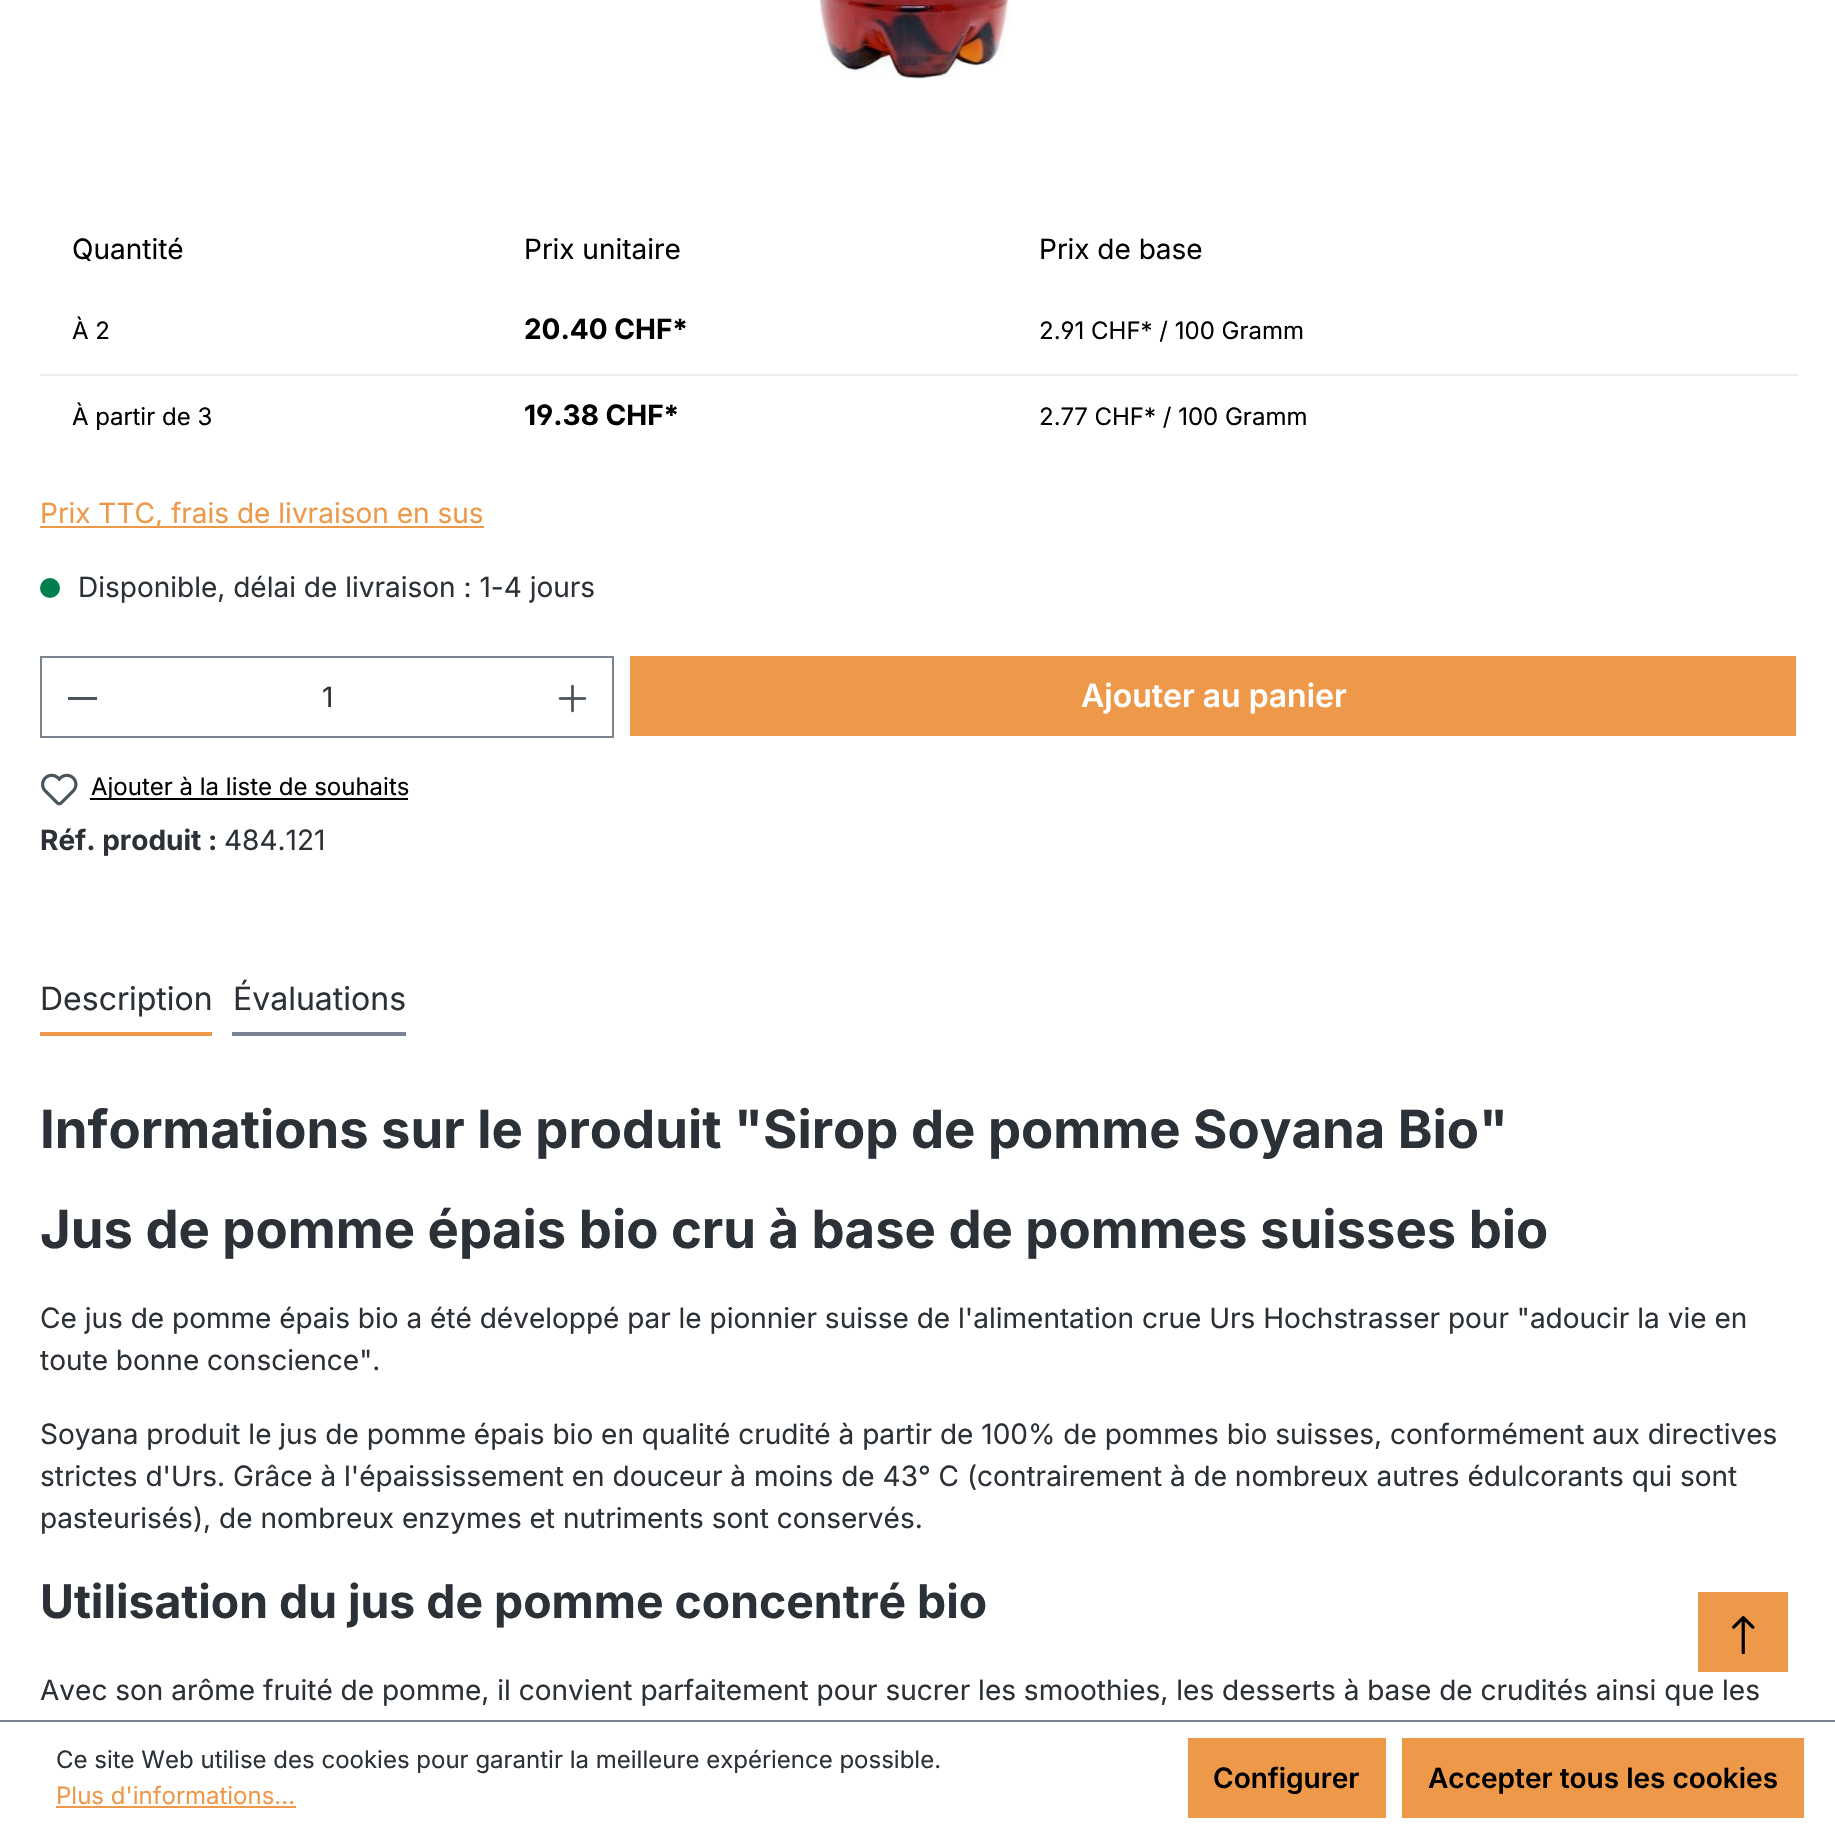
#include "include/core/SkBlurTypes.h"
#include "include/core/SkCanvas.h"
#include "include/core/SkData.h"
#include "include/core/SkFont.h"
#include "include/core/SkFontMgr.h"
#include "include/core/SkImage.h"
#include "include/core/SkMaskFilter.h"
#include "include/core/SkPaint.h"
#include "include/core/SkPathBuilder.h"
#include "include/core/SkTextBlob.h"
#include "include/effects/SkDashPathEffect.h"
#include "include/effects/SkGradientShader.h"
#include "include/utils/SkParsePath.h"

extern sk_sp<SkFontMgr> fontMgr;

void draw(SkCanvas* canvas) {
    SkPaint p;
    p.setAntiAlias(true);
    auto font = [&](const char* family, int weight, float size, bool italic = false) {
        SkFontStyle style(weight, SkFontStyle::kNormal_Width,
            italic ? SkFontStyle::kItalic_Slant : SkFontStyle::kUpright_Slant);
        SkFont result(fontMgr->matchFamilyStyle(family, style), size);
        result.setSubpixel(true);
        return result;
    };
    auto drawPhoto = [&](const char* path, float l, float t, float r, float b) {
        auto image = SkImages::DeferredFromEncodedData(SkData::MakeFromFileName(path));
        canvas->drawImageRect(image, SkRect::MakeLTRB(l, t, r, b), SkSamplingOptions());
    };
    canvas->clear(0xFFFFFFFF);
    drawPhoto("media/1.png", 819, 0, 1012, 79);
    auto font1 = font("Inter", 400, 28);
    p.setColor(0xFF000000);
    {
        const struct { const char* s; float x, y; } items[] = {
            {"Quantité", 72, 259},
            {"Prix unitaire", 524, 259},
            {"Prix de base", 1039, 259},
        };
        for (auto [s, x, y] : items) {
            canvas->drawString(s, x, y, font1, p);
        }
    }
    auto font2 = font("Inter", 400, 24);
    canvas->drawString("À 2", 72, 339, font2, p);
    auto font3 = font("Inter", 700, 28);
    canvas->drawString("20.40 CHF*", 524, 339, font3, p);
    auto font4 = font("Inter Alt", 400, 24);
    canvas->drawString("2.91 CHF* / 100 Gramm", 1039, 339, font4, p);
    p.setColor(0xFFEEEEEE);
    canvas->drawRect(SkRect::MakeLTRB(40, 374, 1798, 376), p);
    p.setColor(0xFF000000);
    canvas->drawString("À partir de 3", 72, 425, font2, p);
    auto font5 = font("Inter Alt", 700, 28);
    canvas->drawString("19.38 CHF*", 524, 425, font5, p);
    canvas->drawString("2.77 CHF* / 100 Gramm", 1039, 425, font2, p);
    p.setColor(0xFFEE994A);
    canvas->drawRect(SkRect::MakeLTRB(40, 526, 484, 528), p);
    canvas->drawString("Prix TTC, frais de livraison en sus", 40, 523, font1, p);
    p.setColor(0xFF007E4E);
    canvas->drawCircle(50, 588, 10, p);
    p.setColor(0xFF2B3136);
    canvas->drawString("Disponible, délai de livraison : 1-4 jours", 78, 597, font1, p);
    {
        const struct { float l, t, r, b; SkColor color; } items[] = {
            {40, 656, 614, 658, 0xFF798490},
            {40, 736, 534, 738, 0xFF798490},
            {40, 656, 42, 738, 0xFF798490},
            {68, 697, 97, 700, 0xFF4A545B},
        };
        for (auto [l, t, r, b, color] : items) {
            p.setColor(color);
            canvas->drawRect(SkRect::MakeLTRB(l, t, r, b), p);
        }
    }
    p.setColor(0xFF2B3136);
    canvas->drawString("1", 322, 707, font1, p);
    p.setColor(0xFF798490);
    canvas->drawRect(SkRect::MakeLTRB(612, 656, 614, 738), p);
    canvas->drawRect(SkRect::MakeLTRB(532, 736, 614, 738), p);
    drawPhoto("media/2.png", 558, 684, 587, 713);
    p.setColor(0xFFEE994A);
    canvas->drawRect(SkRect::MakeLTRB(630, 656, 1796, 736), p);
    auto font6 = font("Inter", 600, 32);
    p.setColor(0xFFFFFFFF);
    canvas->drawString("Ajouter au panier", 1081, 707, font6, p);
    drawPhoto("media/3.png", 41, 773, 78, 806);
    p.setColor(0xFF000000);
    canvas->drawRect(SkRect::MakeLTRB(90, 798, 408, 800), p);
    canvas->drawString("Ajouter à la liste de souhaits", 91, 795, font2, p);
    p.setColor(0xFF2B3136);
    canvas->drawString("Réf. produit :", 40, 850, font3, p);
    canvas->drawString("484.121", 224, 850, font1, p);
    p.setColor(0xFFEE994A);
    canvas->drawRect(SkRect::MakeLTRB(40, 1032, 212, 1036), p);
    auto font7 = font("Inter", 400, 32);
    p.setColor(0xFF2B3136);
    canvas->drawString("Description", 40, 1010, font7, p);
    p.setColor(0xFF798490);
    canvas->drawRect(SkRect::MakeLTRB(232, 1032, 406, 1036), p);
    p.setColor(0xFF2B3136);
    canvas->drawString("Évaluations", 233, 1010, font7, p);
    auto font8 = font("Inter", 700, 52.6f);
    canvas->drawString("Informations sur le produit \"Sirop de pomme Soyana Bio\"", 40, 1148, font8, p);
    canvas->drawString("Jus de pomme épais bio cru à base de pommes suisses bio", 40, 1248, font8, p);
    {
        const struct { const char* s; float x, y; } items[] = {
            {"Ce jus de pomme épais bio a été développé par le pionnier suisse de l'alimentation crue Urs Hochstrasser pour \"adoucir la vie en", 40, 1328},
            {"toute bonne conscience\".", 40, 1370},
            {"Soyana produit le jus de pomme épais bio en qualité crudité à partir de 100% de pommes bio suisses, conformément aux directives", 40, 1444},
            {"strictes d'Urs. Grâce à l'épaississement en douceur à moins de 43° C (contrairement à de nombreux autres édulcorants qui sont", 40, 1486},
            {"pasteurisés), de nombreux enzymes et nutriments sont conservés.", 40, 1528},
        };
        for (auto [s, x, y] : items) {
            canvas->drawString(s, x, y, font1, p);
        }
    }
    auto font9 = font("Inter", 700, 46.3f);
    canvas->drawString("Utilisation du jus de pomme concentré bio", 40, 1618, font9, p);
    canvas->drawString("Avec son arôme fruité de pomme, il convient parfaitement pour sucrer les smoothies, les desserts à base de crudités ainsi que les", 40, 1700, font1, p);
    p.setColor(0xFFEE994A);
    canvas->drawRect(SkRect::MakeLTRB(1698, 1592, 1788, 1672), p);
    drawPhoto("media/4.png", 1732, 1616, 1755, 1654);
    p.setColor(0xFF798490);
    canvas->drawRect(SkRect::MakeLTRB(0, 1720, 1835, 1722), p);
    p.setColor(0xFF2B3136);
    canvas->drawString("Ce site Web utilise des cookies pour garantir la meilleure expérience possible.", 56, 1768, font2, p);
    p.setColor(0xFFEE994A);
    canvas->drawString("Plus d'informations...", 56, 1804, font2, p);
    canvas->drawRect(SkRect::MakeLTRB(56, 1806, 296, 1808), p);
    canvas->drawRect(SkRect::MakeLTRB(1188, 1738, 1386, 1818), p);
    auto font10 = font("Inter", 600, 28);
    p.setColor(0xFF000000);
    canvas->drawString("Configurer", 1213, 1788, font10, p);
    p.setColor(0xFFEE994A);
    canvas->drawRect(SkRect::MakeLTRB(1402, 1738, 1804, 1818), p);
    p.setColor(0xFF000000);
    canvas->drawString("Accepter tous les cookies", 1428, 1788, font10, p);
}
